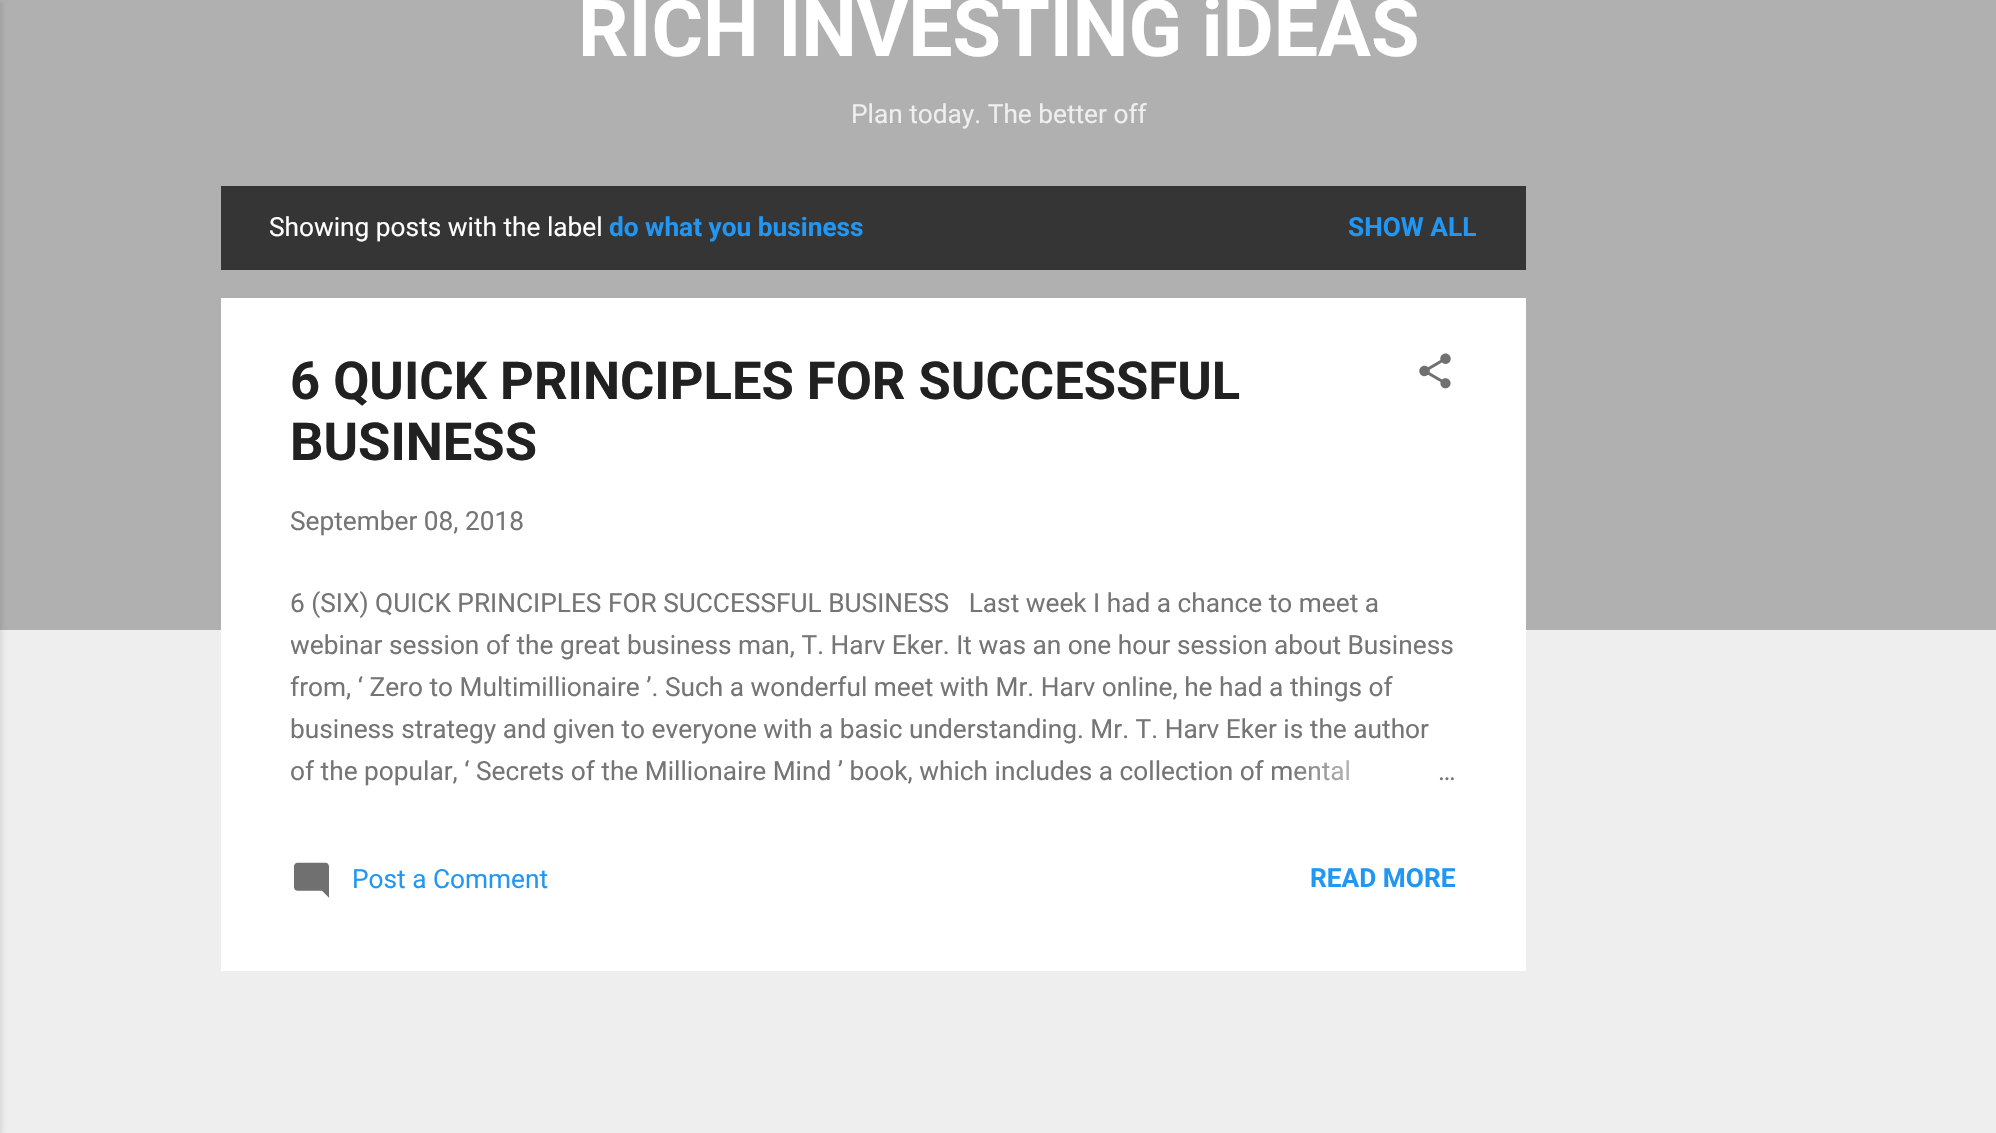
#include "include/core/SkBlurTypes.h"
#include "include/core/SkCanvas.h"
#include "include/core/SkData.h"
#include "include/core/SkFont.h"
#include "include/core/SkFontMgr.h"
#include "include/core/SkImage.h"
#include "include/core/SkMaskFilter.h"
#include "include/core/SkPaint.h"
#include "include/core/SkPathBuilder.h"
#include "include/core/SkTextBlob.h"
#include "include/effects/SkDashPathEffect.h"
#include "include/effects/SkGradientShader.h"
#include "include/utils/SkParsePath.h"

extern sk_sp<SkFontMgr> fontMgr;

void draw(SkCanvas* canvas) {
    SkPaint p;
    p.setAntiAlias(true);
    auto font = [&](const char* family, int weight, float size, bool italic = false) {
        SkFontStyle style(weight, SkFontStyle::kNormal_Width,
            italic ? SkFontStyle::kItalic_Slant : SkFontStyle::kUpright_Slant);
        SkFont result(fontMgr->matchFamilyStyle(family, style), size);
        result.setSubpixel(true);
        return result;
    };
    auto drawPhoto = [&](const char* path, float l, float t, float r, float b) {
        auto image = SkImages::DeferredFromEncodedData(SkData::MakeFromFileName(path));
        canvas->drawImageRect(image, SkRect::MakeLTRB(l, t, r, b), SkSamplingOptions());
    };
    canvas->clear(0xFFEEEEEE);
    p.setColor(0xFFB0B0B0);
    canvas->drawRect(SkRect::MakeLTRB(0, 0, 1996, 630), p);
    p.setColor(0x1A000000);
    p.setMaskFilter(SkMaskFilter::MakeBlur(kNormal_SkBlurStyle, 2.5f));
    canvas->drawRect(SkRect::MakeLTRB(-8, 2, 2, 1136), p);
    p.setMaskFilter(nullptr);
    auto font1 = font("Roboto", 700, 78.75f);
    p.setColor(0xFFFFFFFF);
    canvas->drawString("RICH INVESTING iDEAS", 578, 56, font1, p);
    auto font2 = font("Roboto", 400, 26.25f);
    p.setColor(0xFFEFEFEF);
    canvas->drawString("Plan today. The better off", 851, 123, font2, p);
    p.setColor(0xFF353535);
    canvas->drawRect(SkRect::MakeLTRB(221, 186, 1526, 270), p);
    p.setColor(0xFFFFFFFF);
    canvas->drawString("Showing posts with the label", 269, 236, font2, p);
    auto font3 = font("Roboto", 700, 26.25f);
    p.setColor(0xFF2196F3);
    canvas->drawString("do what you business", 609, 236, font3, p);
    canvas->drawString("SHOW ALL", 1348, 236, font3, p);
    p.setColor(0xFFFFFFFF);
    canvas->drawRect(SkRect::MakeLTRB(221, 298, 1526, 971), p);
    auto font4 = font("Roboto", 700, 52.5f);
    p.setColor(0xFF212121);
    canvas->drawString("6 QUICK PRINCIPLES FOR SUCCESSFUL", 290, 399, font4, p);
    canvas->drawString("BUSINESS", 290, 460, font4, p);
    drawPhoto("media/1.png", 1419, 353, 1451, 389);
    p.setColor(0xFF757575);
    canvas->drawString("September 08, 2018", 290, 530, font2, p);
    canvas->drawString("6 (SIX) QUICK PRINCIPLES FOR SUCCESSFUL BUSINESS   Last week I had a chance to meet a", 290, 612, font2, p);
    canvas->save();
    canvas->clipRect(SkRect::MakeLTRB(291, 583, 1456, 793));
    canvas->drawString("webinar session of the great business man, T. Harv Eker. It was an one hour session about Business", 290, 654, font2, p);
    canvas->restore();
    canvas->drawString("from, ‘ Zero to Multimillionaire ’. Such a wonderful meet with Mr. Harv online, he had a things of", 290, 696, font2, p);
    canvas->drawString("business strategy and given to everyone with a basic understanding. Mr. T. Harv Eker is the author", 290, 738, font2, p);
    canvas->save();
    canvas->clipRect(SkRect::MakeLTRB(291, 583, 1456, 793));
    canvas->drawString("of the popular, ‘ Secrets of the Millionaire Mind ’ book, which includes a collection of mental", 290, 780, font2, p);
    canvas->restore();
    {
        const SkColor colors[] = {0xFFFFFFFF, 0xFFFFFFFF, 0x00FFFFFF};
        const float stops[] = {0, 0.2f, 1};
        const SkPoint ends[] = {{1456, 772}, {1288, 772}};
        p.setShader(SkGradientShader::MakeLinear(ends, colors, stops, 3, SkTileMode::kClamp));
        p.setAlpha(255);
    }
    canvas->drawRect(SkRect::MakeLTRB(1294, 760, 1349, 781), p);
    p.setShader(nullptr);
    p.setColor(0xFF757575);
    canvas->drawString("…", 1438, 780, font2, p);
    drawPhoto("media/2.png", 294, 862, 329, 898);
    p.setColor(0xFF2196F3);
    canvas->drawString("Post a Comment", 352, 888, font2, p);
    canvas->drawString("READ MORE", 1310, 887, font3, p);
}
